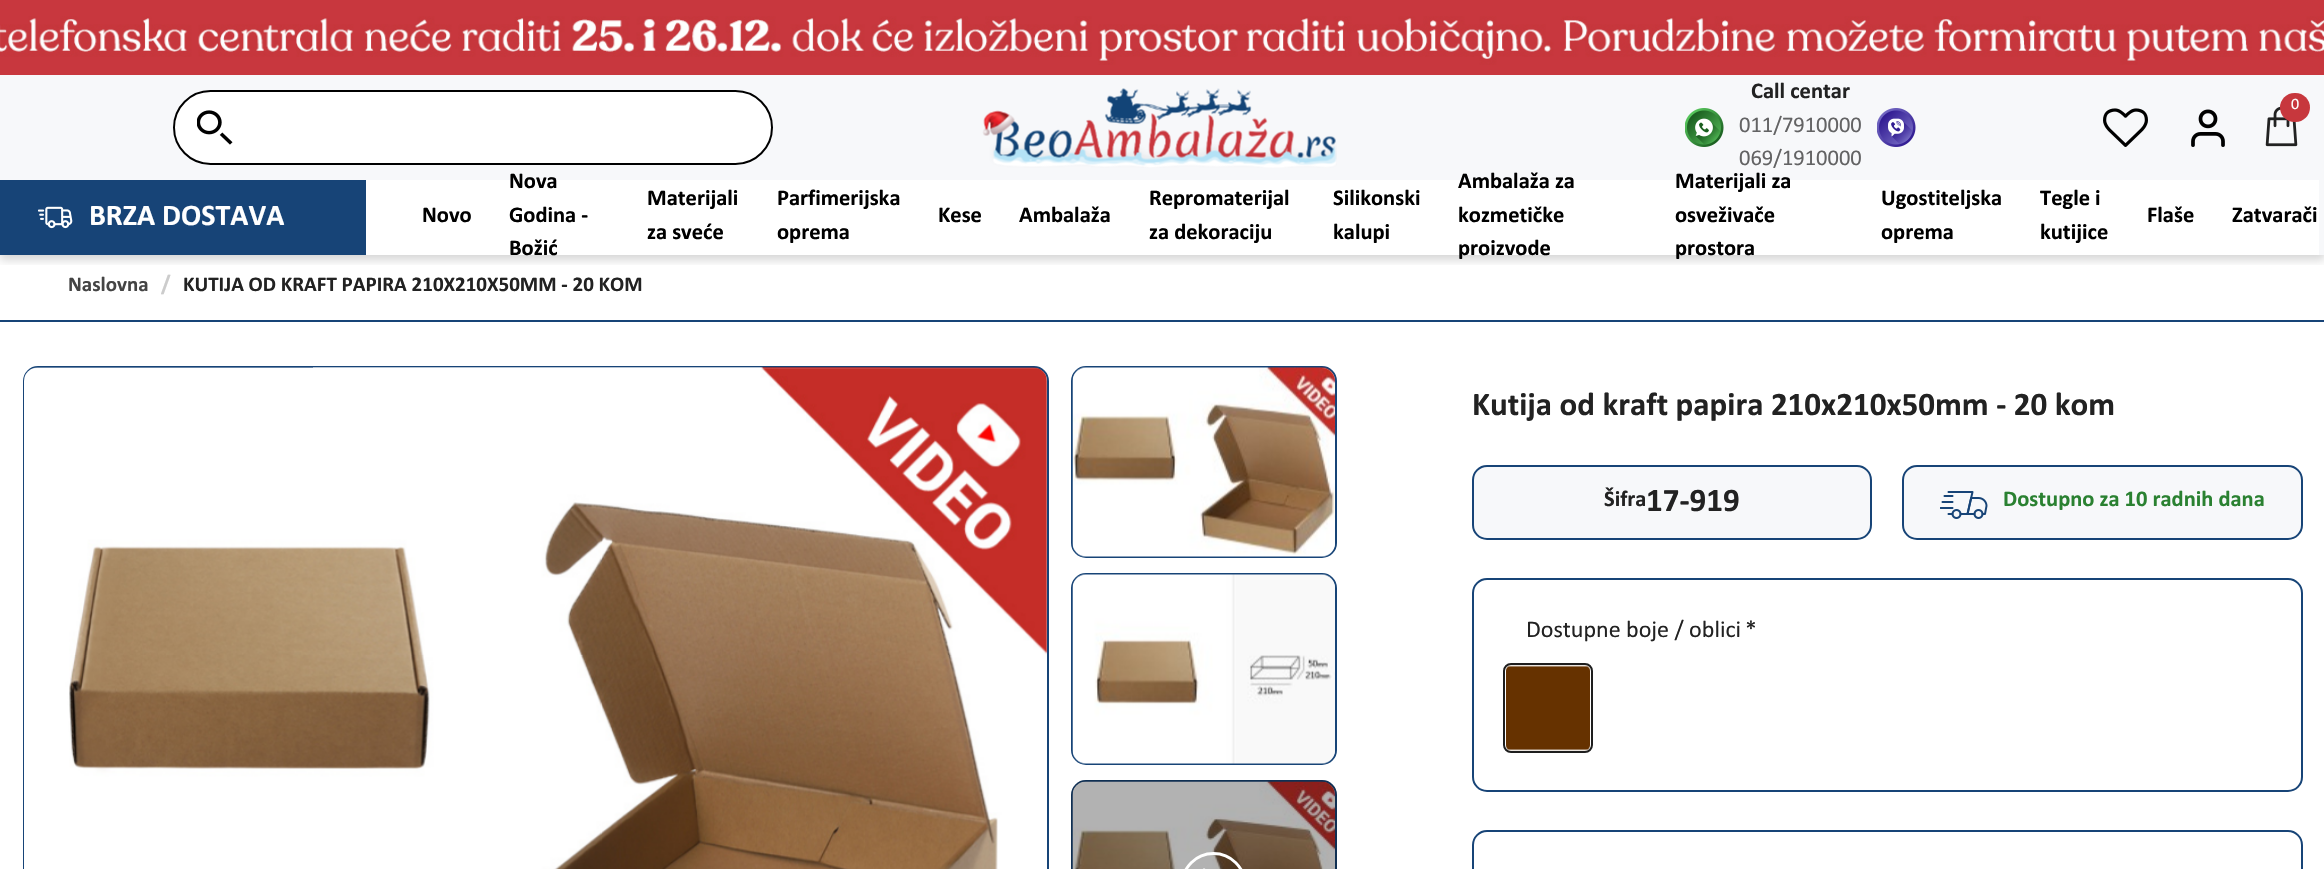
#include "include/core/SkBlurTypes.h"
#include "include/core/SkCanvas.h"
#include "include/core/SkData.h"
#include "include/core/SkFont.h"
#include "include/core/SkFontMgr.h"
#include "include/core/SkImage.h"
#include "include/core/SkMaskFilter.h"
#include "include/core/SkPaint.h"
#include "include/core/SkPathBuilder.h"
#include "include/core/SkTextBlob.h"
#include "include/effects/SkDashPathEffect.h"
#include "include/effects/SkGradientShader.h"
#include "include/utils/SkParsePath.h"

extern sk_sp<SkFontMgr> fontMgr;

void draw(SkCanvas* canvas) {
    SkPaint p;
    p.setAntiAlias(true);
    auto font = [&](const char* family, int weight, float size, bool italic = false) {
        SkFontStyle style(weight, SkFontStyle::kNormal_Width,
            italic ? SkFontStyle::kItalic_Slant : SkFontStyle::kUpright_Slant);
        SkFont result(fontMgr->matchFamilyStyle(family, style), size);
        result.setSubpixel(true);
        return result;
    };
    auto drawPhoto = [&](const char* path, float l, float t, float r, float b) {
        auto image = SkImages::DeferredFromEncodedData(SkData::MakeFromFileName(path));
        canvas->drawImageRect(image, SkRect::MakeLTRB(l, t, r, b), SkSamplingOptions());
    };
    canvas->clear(0xFFFFFFFF);
    p.setColor(0xFFF7F8FA);
    canvas->drawRect(SkRect::MakeLTRB(0, 75, 2324, 255), p);
    drawPhoto("media/1.png", 0, 0, 2324, 75);
    p.setColor(0xFFFFFFFF);
    canvas->drawRoundRect(SkRect::MakeLTRB(174, 91, 772, 164), 36.5f, 36.5f, p);
    p.setStyle(SkPaint::kStroke_Style);
    p.setStrokeWidth(2);
    p.setColor(0xFF000000);
    canvas->drawRoundRect(SkRect::MakeLTRB(174, 91, 772, 164), 36.5f, 36.5f, p);
    drawPhoto("media/2.png", 197, 110, 233, 145);
    drawPhoto("media/3.png", 982, 88, 1337, 168);
    drawPhoto("media/4.png", 1685, 108, 1724, 147);
    auto font1 = font("Calibri", 700, 22.5f);
    p.setStyle(SkPaint::kFill_Style);
    p.setColor(0xFF222222);
    canvas->drawString("Call centar", 1751, 98, font1, p);
    auto font2 = font("Calibri", 400, 22.5f);
    p.setColor(0xFF636364);
    canvas->drawString("011/7910000", 1739, 132, font2, p);
    canvas->drawString("069/1910000", 1739, 165, font2, p);
    drawPhoto("media/5.png", 1877, 108, 1916, 147);
    drawPhoto("media/6.png", 2265, 106, 2298, 147);
    p.setColor(0xFFC7373D);
    canvas->drawRoundRect(SkRect::MakeLTRB(2280, 93, 2310, 122), 14.5f, 14.5f, p);
    auto font3 = font("Calibri", 400, 16);
    p.setColor(0xFFFFFFFF);
    canvas->drawString("0", 2291, 109, font3, p);
    drawPhoto("media/7.png", 2103, 108, 2148, 147);
    drawPhoto("media/8.png", 2191, 109, 2225, 147);
    canvas->save();
    canvas->clipRect(SkRect::MakeLTRB(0, 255, 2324, 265));
    p.setColor(0x29000000);
    p.setMaskFilter(SkMaskFilter::MakeBlur(kNormal_SkBlurStyle, 4.5f));
    canvas->drawRect(SkRect::MakeLTRB(0, 185, 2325, 260), p);
    p.setMaskFilter(nullptr);
    canvas->restore();
    p.setColor(0xFFFFFFFF);
    canvas->drawRect(SkRect::MakeLTRB(366, 180, 2319, 255), p);
    p.setColor(0xFF000000);
    {
        const struct { const char* s; float x, y; } items[] = {
            {"Novo", 422, 222},
            {"Nova", 509, 188},
            {"Godina -", 509, 222},
            {"Božić", 509, 255},
            {"Materijali", 647, 205},
            {"za sveće", 647, 239},
            {"Parfimerijska", 777, 205},
            {"oprema", 777, 239},
            {"Kese", 938, 222},
            {"Ambalaža", 1019, 222},
            {"Repromaterijal", 1149, 205},
            {"za dekoraciju", 1149, 239},
            {"Silikonski", 1333, 205},
            {"kalupi", 1333, 239},
            {"Ambalaža za", 1458, 188},
            {"kozmetičke", 1458, 222},
            {"proizvode", 1458, 255},
            {"Materijali za", 1675, 188},
            {"osveživače", 1675, 222},
            {"prostora", 1675, 255},
            {"Ugostiteljska", 1881, 205},
            {"oprema", 1881, 239},
            {"Tegle i", 2040, 205},
            {"kutijice", 2040, 239},
            {"Flaše", 2147, 222},
            {"Zatvarači", 2232, 222},
        };
        for (auto [s, x, y] : items) {
            canvas->drawString(s, x, y, font1, p);
        }
    }
    p.setColor(0xFF174477);
    canvas->drawRect(SkRect::MakeLTRB(0, 180, 366, 255), p);
    drawPhoto("media/9.png", 38, 206, 73, 229);
    auto font4 = font("Calibri", 700, 30);
    p.setColor(0xFFFFFFFF);
    canvas->drawString("BRZA DOSTAVA", 89, 225, font4, p);
    p.setColor(0xFF174477);
    canvas->drawRect(SkRect::MakeLTRB(0, 320, 2324, 322), p);
    auto font5 = font("Calibri", 700, 21);
    p.setColor(0xFF444444);
    canvas->drawString("Naslovna", 68, 291, font5, p);
    p.setColor(0xFFCCCCCC);
    canvas->drawString("/", 161, 291, font1, p);
    p.setColor(0xFF222222);
    canvas->drawString("KUTIJA OD KRAFT PAPIRA 210X210X50MM - 20 KOM", 183, 291, font5, p);
    p.setStyle(SkPaint::kStroke_Style);
    p.setColor(0xFF174477);
    canvas->drawRoundRect(SkRect::MakeLTRB(24, 367, 1048, 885), 14, 14, p);
    drawPhoto("media/10.png", 24, 367, 1047, 869);
    canvas->drawRoundRect(SkRect::MakeLTRB(1072, 367, 1336, 557), 14, 14, p);
    drawPhoto("media/11.png", 1072, 367, 1335, 557);
    canvas->drawRoundRect(SkRect::MakeLTRB(1072, 574, 1336, 764), 14, 14, p);
    drawPhoto("media/12.png", 1072, 574, 1335, 764);
    canvas->drawRoundRect(SkRect::MakeLTRB(1072, 781, 1336, 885), 14, 14, p);
    drawPhoto("media/13.png", 1072, 781, 1335, 869);
    p.setStyle(SkPaint::kFill_Style);
    p.setColor(0x4D000000);
    canvas->drawRoundRect(SkRect::MakeLTRB(1071, 780, 1337, 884), 15, 15, p);
    p.setStyle(SkPaint::kStroke_Style);
    p.setStrokeWidth(3);
    p.setColor(0xFFFFFFFF);
    canvas->drawCircle(1213.5f, 885, 31.5f, p);
    canvas->drawPath(SkPathBuilder().moveTo(1230.5f, 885).lineTo(1205, 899.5f).lineTo(1205, 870.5f).close().detach(), p);
    auto font6 = font("Calibri", 700, 33);
    p.setStyle(SkPaint::kFill_Style);
    p.setColor(0xFF222222);
    canvas->drawString("Kutija od kraft papira 210x210x50mm - 20 kom", 1472, 415, font6, p);
    p.setColor(0xFFF7F8FA);
    canvas->drawRoundRect(SkRect::MakeLTRB(1473, 466, 1871, 539), 14, 14, p);
    p.setStyle(SkPaint::kStroke_Style);
    p.setStrokeWidth(2);
    p.setColor(0xFF174477);
    canvas->drawRoundRect(SkRect::MakeLTRB(1473, 466, 1871, 539), 14, 14, p);
    p.setStyle(SkPaint::kFill_Style);
    p.setColor(0xFF222222);
    canvas->drawString("Šifra", 1604, 506, font1, p);
    canvas->drawString("17-919", 1646, 511, font6, p);
    p.setColor(0xFFF7F8FA);
    canvas->drawRoundRect(SkRect::MakeLTRB(1903, 466, 2302, 539), 14, 14, p);
    p.setStyle(SkPaint::kStroke_Style);
    p.setColor(0xFF174477);
    canvas->drawRoundRect(SkRect::MakeLTRB(1903, 466, 2302, 539), 14, 14, p);
    drawPhoto("media/14.png", 1940, 491, 1988, 519);
    p.setStyle(SkPaint::kFill_Style);
    p.setColor(0xFF2A8131);
    canvas->drawString("Dostupno za 10 radnih dana", 2003, 506, font1, p);
    p.setStyle(SkPaint::kStroke_Style);
    p.setColor(0xFF174477);
    canvas->drawRoundRect(SkRect::MakeLTRB(1473, 579, 2302, 791), 14, 14, p);
    auto font7 = font("Calibri", 400, 24);
    p.setStyle(SkPaint::kFill_Style);
    p.setColor(0xFF222222);
    canvas->drawString("Dostupne boje / oblici", 1526, 637, font7, p);
    canvas->drawString("*", 1745, 637, font7, p);
    p.setStyle(SkPaint::kStroke_Style);
    p.setColor(0xFF1E1E1E);
    canvas->drawRoundRect(SkRect::MakeLTRB(1504, 664, 1592, 752), 7, 7, p);
    drawPhoto("media/15.png", 1506, 665, 1590, 751);
    p.setColor(0xFF174477);
    canvas->drawRoundRect(SkRect::MakeLTRB(1473, 831, 2302, 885), 14, 14, p);
}
